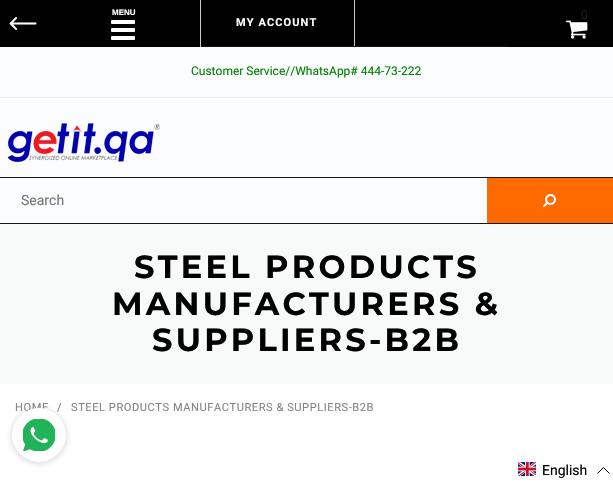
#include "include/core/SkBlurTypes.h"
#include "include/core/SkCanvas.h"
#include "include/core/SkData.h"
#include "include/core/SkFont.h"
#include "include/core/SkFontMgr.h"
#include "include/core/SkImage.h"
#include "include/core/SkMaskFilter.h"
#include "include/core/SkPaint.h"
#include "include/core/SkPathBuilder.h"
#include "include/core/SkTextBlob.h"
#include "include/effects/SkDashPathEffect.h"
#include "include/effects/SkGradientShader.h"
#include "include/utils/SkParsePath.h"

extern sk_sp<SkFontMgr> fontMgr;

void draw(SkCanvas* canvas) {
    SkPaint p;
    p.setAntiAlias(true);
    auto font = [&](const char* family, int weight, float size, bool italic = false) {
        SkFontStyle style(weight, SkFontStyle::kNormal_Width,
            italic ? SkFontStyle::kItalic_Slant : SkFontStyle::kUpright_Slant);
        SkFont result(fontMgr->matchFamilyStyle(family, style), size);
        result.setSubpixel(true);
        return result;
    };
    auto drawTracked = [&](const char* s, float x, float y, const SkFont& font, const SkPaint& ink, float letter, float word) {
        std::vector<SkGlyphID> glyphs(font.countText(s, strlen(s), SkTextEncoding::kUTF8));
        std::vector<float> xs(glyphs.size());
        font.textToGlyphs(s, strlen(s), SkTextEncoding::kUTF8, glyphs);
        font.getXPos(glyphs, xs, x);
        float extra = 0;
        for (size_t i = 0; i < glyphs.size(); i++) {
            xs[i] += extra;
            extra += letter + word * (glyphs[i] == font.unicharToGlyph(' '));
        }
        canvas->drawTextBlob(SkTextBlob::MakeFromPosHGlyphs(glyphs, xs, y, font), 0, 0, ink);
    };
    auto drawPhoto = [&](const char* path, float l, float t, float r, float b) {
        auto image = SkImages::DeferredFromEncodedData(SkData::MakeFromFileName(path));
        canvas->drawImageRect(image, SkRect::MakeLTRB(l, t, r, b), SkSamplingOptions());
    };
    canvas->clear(0xFFFFFFFF);
    {
        const struct { float l, t, r, b; SkColor color; } items[] = {
            {0, 47, 613, 223, 0xFFFBFCFE},
            {0, 0, 613, 47, 0xFF000000},
            {200, 0, 201, 47, 0xFFCCCCCC},
        };
        for (auto [l, t, r, b, color] : items) {
            p.setColor(color);
            canvas->drawRect(SkRect::MakeLTRB(l, t, r, b), p);
        }
    }
    auto font1 = font("Liberation Sans", 700, 8);
    p.setColor(0xFFFFFFFF);
    canvas->drawString("MENU", 112, 15, font1, p);
    drawPhoto("media/1.png", 111, 20, 135, 40);
    drawPhoto("media/2.png", 9, 17, 37, 30);
    p.setColor(0xFF151515);
    canvas->drawRect(SkRect::MakeLTRB(201, 46, 508, 47), p);
    p.setColor(0xFFCCCCCC);
    canvas->drawRect(SkRect::MakeLTRB(354, 0, 355, 46), p);
    auto font2 = font("Roboto", 700, 11);
    p.setColor(0xFFFFFFFF);
    drawTracked("MY ACCOUNT", 236, 26, font2, p, 1.1f, 0);
    auto font3 = font("Roboto", 400, 12);
    p.setColor(0xFF1B1B1B);
    drawTracked("0", 581, 19, font3, p, 2, 0);
    drawPhoto("media/3.png", 566, 20, 588, 39);
    p.setColor(0xFFEEEEEE);
    canvas->drawRect(SkRect::MakeLTRB(0, 97, 613, 98), p);
    p.setColor(0xFF008000);
    canvas->drawString("Customer Service//WhatsApp# 444-73-222", 191, 75, font3, p);
    drawPhoto("media/4.png", 7, 123, 161, 162);
    p.setStyle(SkPaint::kStroke_Style);
    p.setStrokeWidth(1);
    p.setColor(0xFF151515);
    canvas->drawRect(SkRect::MakeLTRB(-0.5f, 177.5f, 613.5f, 223.5f), p);
    auto font4 = font("Roboto", 400, 14);
    p.setStyle(SkPaint::kFill_Style);
    p.setColor(0xFF757575);
    canvas->drawString("Search", 21, 205, font4, p);
    p.setColor(0xFFFE6A00);
    canvas->drawRect(SkRect::MakeLTRB(487, 178, 613, 223), p);
    drawPhoto("media/5.png", 543, 194, 556, 207);
    p.setColor(0xFFF8F9F9);
    canvas->drawRect(SkRect::MakeLTRB(0, 224, 613, 384), p);
    auto font5 = font("Montserrat", 700, 32);
    p.setColor(0xFF000000);
    {
        const struct { const char* s; float x, y; } items[] = {
            {"STEEL PRODUCTS", 134, 278},
            {"MANUFACTURERS &", 112, 315},
            {"SUPPLIERS-B2B", 152, 351},
        };
        for (auto [s, x, y] : items) {
            drawTracked(s, x, y, font5, p, 3.25f, 0);
        }
    }
    auto font6 = font("Roboto", 400, 11.1f);
    p.setColor(0xFF848484);
    {
        const struct { const char* s; float x, y; } items[] = {
            {"HOME", 15, 411},
            {"/", 57, 411},
            {"STEEL PRODUCTS MANUFACTURERS & SUPPLIERS-B2B", 71, 411},
        };
        for (auto [s, x, y] : items) {
            drawTracked(s, x, y, font6, p, 0.55f, 0);
        }
    }
    drawPhoto("media/6.png", 518, 462, 536, 476);
    p.setColor(0xFF000000);
    canvas->drawString("English", 542, 475, font4, p);
    p.setStyle(SkPaint::kStroke_Style);
    canvas->drawPath(SkPathBuilder().moveTo(609.5f, 473.5f).lineTo(603.5f, 467.5f).lineTo(597.5f, 473.5f).detach(), p);
    p.setStyle(SkPaint::kFill_Style);
    p.setColor(0x331B1B1B);
    p.setMaskFilter(SkMaskFilter::MakeBlur(kNormal_SkBlurStyle, 3));
    canvas->drawRoundRect(SkRect::MakeLTRB(12, 409, 66, 463), 27, 27, p);
    p.setMaskFilter(nullptr);
    p.setColor(0xFFFFFFFF);
    canvas->drawCircle(39, 435, 26.5f, p);
    p.setStyle(SkPaint::kStroke_Style);
    canvas->drawCircle(39, 435, 26.5f, p);
    drawPhoto("media/7.png", 23, 419, 55, 451);
}
